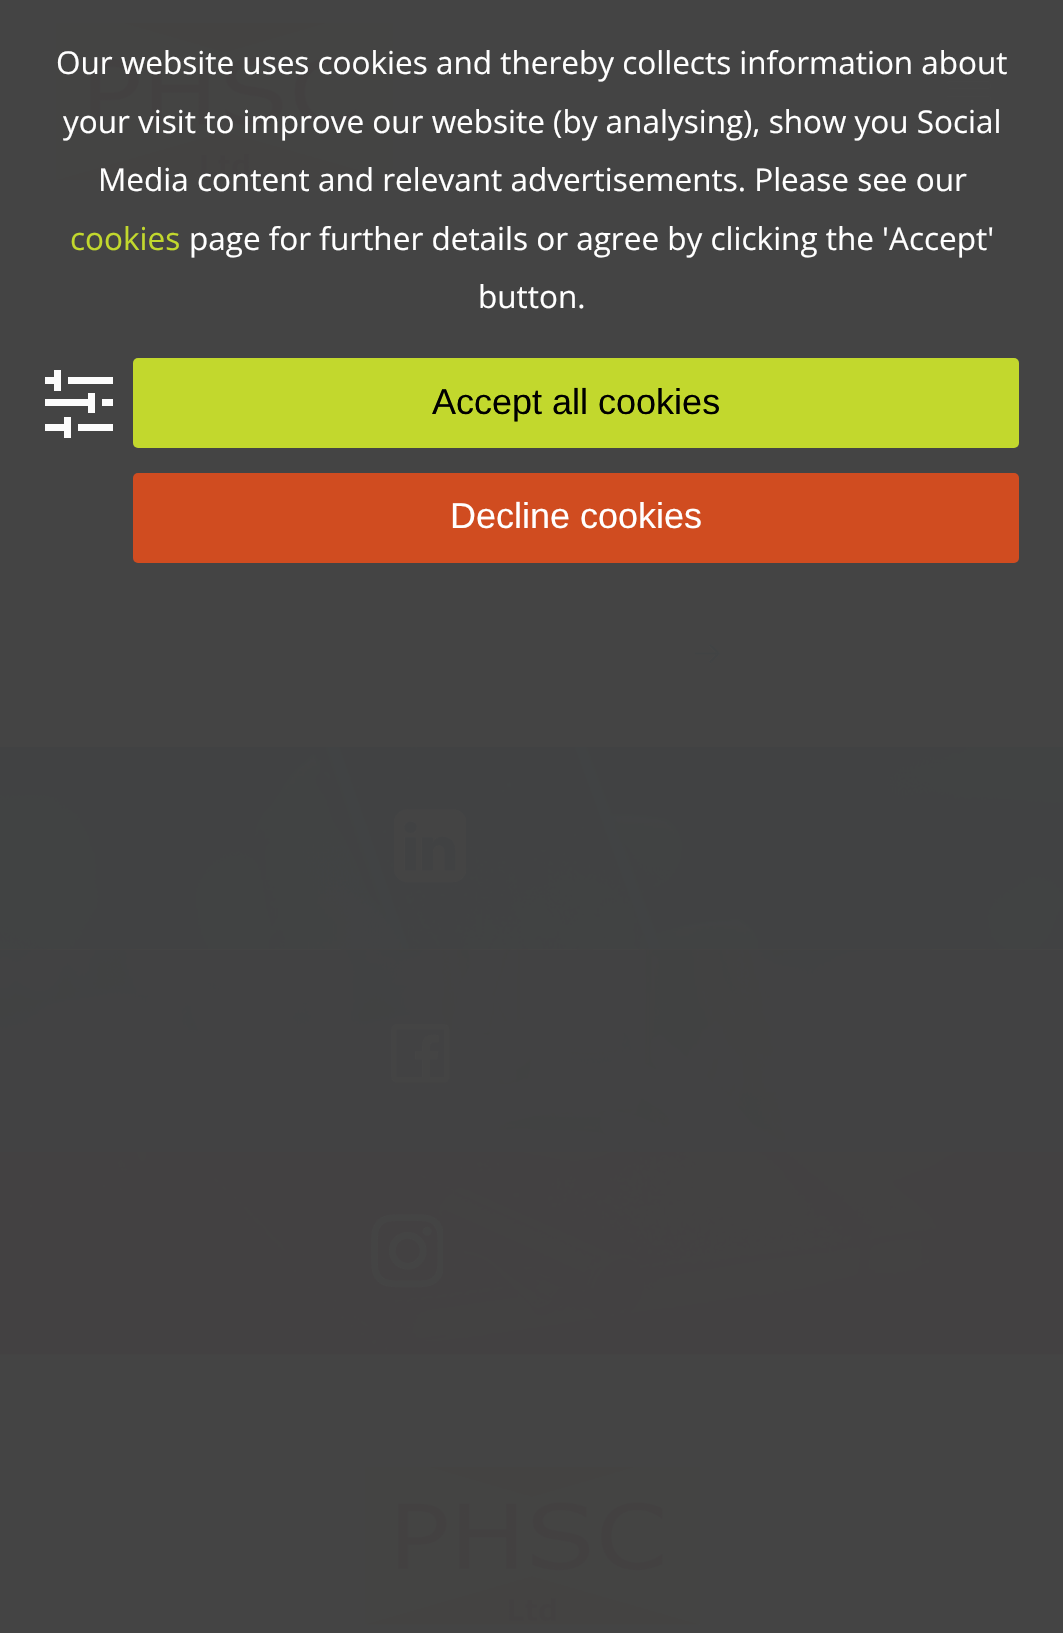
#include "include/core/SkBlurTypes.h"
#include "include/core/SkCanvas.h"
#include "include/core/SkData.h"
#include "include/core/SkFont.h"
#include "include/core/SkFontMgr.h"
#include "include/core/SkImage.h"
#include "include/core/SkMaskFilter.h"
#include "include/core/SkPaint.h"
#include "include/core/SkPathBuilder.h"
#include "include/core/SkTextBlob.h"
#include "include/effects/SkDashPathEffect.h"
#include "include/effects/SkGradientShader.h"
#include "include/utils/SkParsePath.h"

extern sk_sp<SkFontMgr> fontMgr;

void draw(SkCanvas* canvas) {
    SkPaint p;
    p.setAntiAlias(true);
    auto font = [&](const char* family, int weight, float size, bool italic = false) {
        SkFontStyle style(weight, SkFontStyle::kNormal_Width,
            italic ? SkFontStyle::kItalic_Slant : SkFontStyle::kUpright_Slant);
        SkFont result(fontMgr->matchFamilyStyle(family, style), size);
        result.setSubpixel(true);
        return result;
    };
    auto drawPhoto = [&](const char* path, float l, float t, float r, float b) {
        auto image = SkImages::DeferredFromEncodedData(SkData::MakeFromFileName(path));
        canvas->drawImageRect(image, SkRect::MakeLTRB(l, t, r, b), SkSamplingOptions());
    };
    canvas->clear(0xFF444444);
    drawPhoto("media/1.png", 56, 23, 394, 180);
    drawPhoto("media/2.png", 947, 81, 991, 118);
    drawPhoto("media/3.png", 694, 643, 721, 664);
    drawPhoto("media/4.png", 0, 747, 1063, 950);
    drawPhoto("media/5.png", 394, 809, 466, 883);
    drawPhoto("media/6.png", 0, 949, 1063, 1152);
    drawPhoto("media/7.png", 391, 1024, 450, 1083);
    drawPhoto("media/8.png", 0, 1152, 1063, 1355);
    drawPhoto("media/9.png", 371, 1214, 443, 1288);
    drawPhoto("media/10.png", 364, 1467, 700, 1625);
    auto font1 = font("Open Sans", 400, 31.5f);
    p.setColor(0xFFFFFFFF);
    {
        const struct { const char* s; float x, y; } items[] = {
            {"Our website uses cookies and thereby collects information about", 56, 74},
            {"your visit to improve our website (by analysing), show you Social", 63, 133},
            {"Media content and relevant advertisements. Please see our", 98, 191},
        };
        for (auto [s, x, y] : items) {
            canvas->drawString(s, x, y, font1, p);
        }
    }
    p.setColor(0xFFC2D82D);
    canvas->drawString("cookies", 70, 250, font1, p);
    p.setColor(0xFFFFFFFF);
    canvas->drawString("page for further details or agree by clicking the 'Accept'", 189, 250, font1, p);
    canvas->drawString("button.", 478, 308, font1, p);
    {
        const struct { float l, t, r, b; SkColor color; } items[] = {
            {68, 377, 113, 384, 0xFFFCFCFC},
            {45, 377, 61, 384, 0xFFFCFCFC},
            {54, 370, 61, 391, 0xFFFCFCFC},
            {102, 399, 113, 406, 0xFFFCFCFC},
            {45, 399, 89, 406, 0xFFFCFCFC},
            {88, 393, 95, 413, 0xFFFCFCFC},
            {78, 424, 113, 431, 0xFFFCFCFC},
            {45, 424, 66, 431, 0xFFFCFCFC},
            {64, 417, 71, 438, 0xFFFCFCFC},
        };
        for (auto [l, t, r, b, color] : items) {
            p.setColor(color);
            canvas->drawRect(SkRect::MakeLTRB(l, t, r, b), p);
        }
    }
    p.setColor(0xFFC2D82D);
    canvas->drawRoundRect(SkRect::MakeLTRB(133, 358, 1019, 448), 5, 5, p);
    auto font2 = font("Liberation Sans", 400, 36);
    p.setColor(0xFF000000);
    canvas->drawString("Accept all cookies", 432, 414, font2, p);
    p.setColor(0xFFD04C20);
    canvas->drawRoundRect(SkRect::MakeLTRB(133, 473, 1019, 563), 5, 5, p);
    p.setColor(0xFFFFFFFF);
    canvas->drawString("Decline cookies", 450, 528, font2, p);
}
